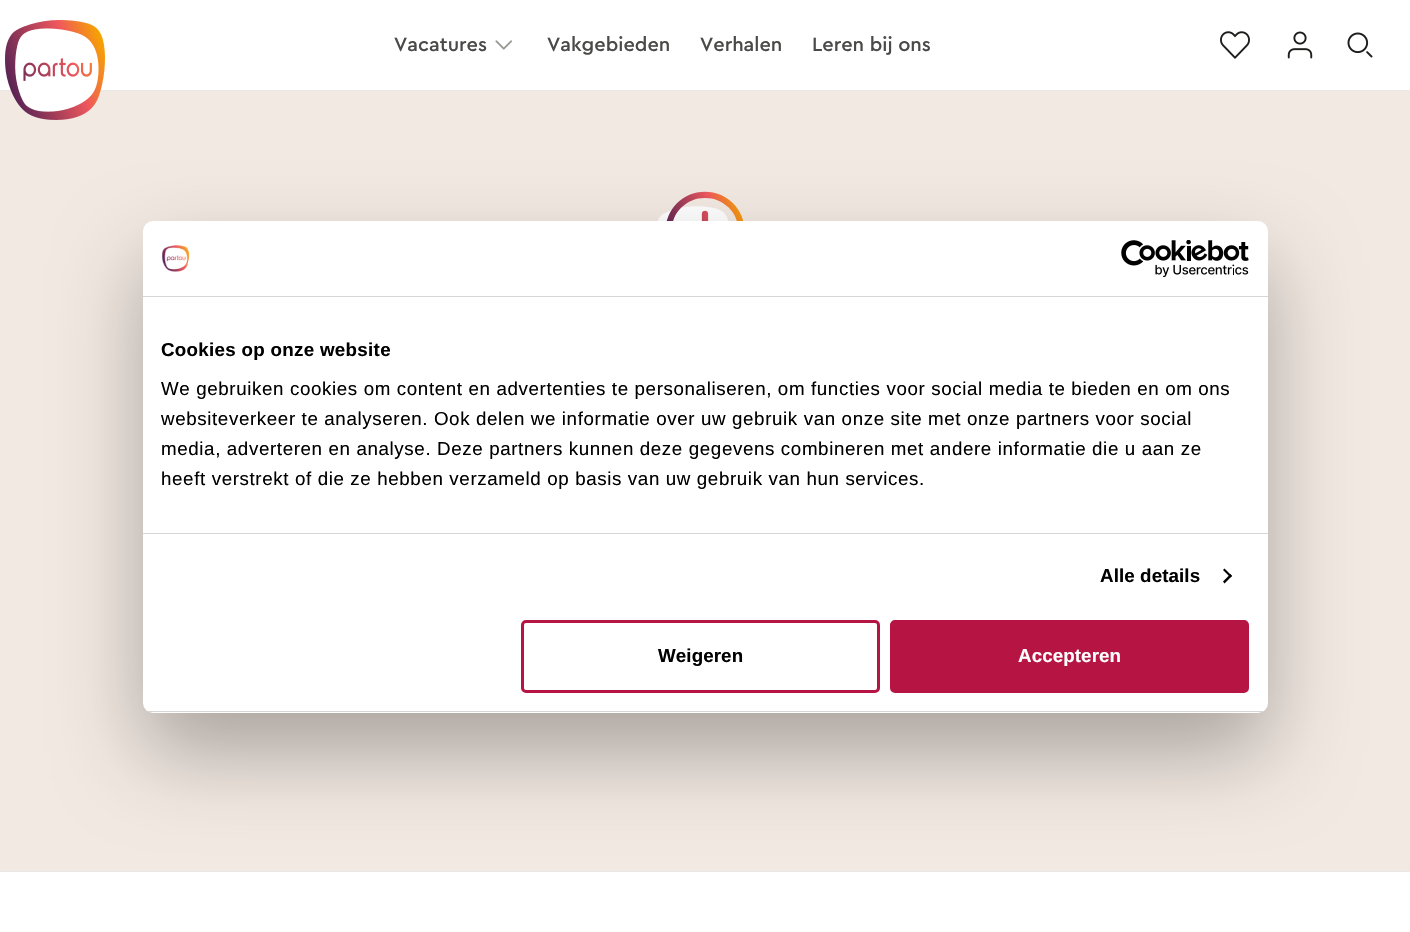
#include "include/core/SkBlurTypes.h"
#include "include/core/SkCanvas.h"
#include "include/core/SkData.h"
#include "include/core/SkFont.h"
#include "include/core/SkFontMgr.h"
#include "include/core/SkImage.h"
#include "include/core/SkMaskFilter.h"
#include "include/core/SkPaint.h"
#include "include/core/SkPathBuilder.h"
#include "include/core/SkTextBlob.h"
#include "include/effects/SkDashPathEffect.h"
#include "include/effects/SkGradientShader.h"
#include "include/utils/SkParsePath.h"

extern sk_sp<SkFontMgr> fontMgr;

void draw(SkCanvas* canvas) {
    SkPaint p;
    p.setAntiAlias(true);
    auto font = [&](const char* family, int weight, float size, bool italic = false) {
        SkFontStyle style(weight, SkFontStyle::kNormal_Width,
            italic ? SkFontStyle::kItalic_Slant : SkFontStyle::kUpright_Slant);
        SkFont result(fontMgr->matchFamilyStyle(family, style), size);
        result.setSubpixel(true);
        return result;
    };
    auto drawTracked = [&](const char* s, float x, float y, const SkFont& font, const SkPaint& ink, float letter, float word) {
        std::vector<SkGlyphID> glyphs(font.countText(s, strlen(s), SkTextEncoding::kUTF8));
        std::vector<float> xs(glyphs.size());
        font.textToGlyphs(s, strlen(s), SkTextEncoding::kUTF8, glyphs);
        font.getXPos(glyphs, xs, x);
        float extra = 0;
        for (size_t i = 0; i < glyphs.size(); i++) {
            xs[i] += extra;
            extra += letter + word * (glyphs[i] == font.unicharToGlyph(' '));
        }
        canvas->drawTextBlob(SkTextBlob::MakeFromPosHGlyphs(glyphs, xs, y, font), 0, 0, ink);
    };
    auto drawPhoto = [&](const char* path, float l, float t, float r, float b) {
        auto image = SkImages::DeferredFromEncodedData(SkData::MakeFromFileName(path));
        canvas->drawImageRect(image, SkRect::MakeLTRB(l, t, r, b), SkSamplingOptions());
    };
    canvas->clear(0xFFFFFFFF);
    p.setColor(0xFFE8E8E8);
    canvas->drawRect(SkRect::MakeLTRB(0, 90, 1410, 91), p);
    p.setColor(0xFFF2E9E2);
    canvas->drawRect(SkRect::MakeLTRB(0, 91, 1410, 871), p);
    drawPhoto("media/1.png", 5, 20, 105, 120);
    auto font1 = font("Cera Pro", 500, 20);
    p.setColor(0xFF4A4A49);
    canvas->drawString("Vacatures", 394, 51, font1, p);
    drawPhoto("media/2.png", 495, 40, 512, 50);
    {
        const struct { const char* s; float x, y; } items[] = {
            {"Vakgebieden", 547, 51},
            {"Verhalen", 700, 51},
            {"Leren bij ons", 812, 51},
        };
        for (auto [s, x, y] : items) {
            canvas->drawString(s, x, y, font1, p);
        }
    }
    drawPhoto("media/3.png", 1220, 31, 1250, 59);
    drawPhoto("media/4.png", 1287, 31, 1313, 59);
    drawPhoto("media/5.png", 1347, 32, 1373, 58);
    drawPhoto("media/6.png", 657, 191, 744, 221);
    p.setColor(0xFFE8E8E8);
    canvas->drawRect(SkRect::MakeLTRB(0, 871, 1410, 872), p);
    p.setColor(0x4D000000);
    p.setMaskFilter(SkMaskFilter::MakeBlur(kNormal_SkBlurStyle, 42.5f));
    canvas->drawRoundRect(SkRect::MakeLTRB(143, 261, 1268, 753), 10, 10, p);
    p.setMaskFilter(nullptr);
    p.setColor(0xFFFFFFFF);
    canvas->drawRoundRect(SkRect::MakeLTRB(143, 221, 1268, 713), 10, 10, p);
    p.setColor(0xFFD6D6D6);
    canvas->drawRect(SkRect::MakeLTRB(143, 296, 1268, 297), p);
    drawPhoto("media/7.png", 162, 245, 190, 272);
    drawPhoto("media/8.png", 1121, 240, 1249, 278);
    canvas->drawRect(SkRect::MakeLTRB(143, 533, 1268, 534), p);
    auto font2 = font("Liberation Sans", 700, 18.75f);
    p.setColor(0xFF000000);
    drawTracked("Cookies op onze website", 161, 356, font2, p, 0.3f, 0);
    auto font3 = font("Liberation Sans", 400, 18.75f);
    {
        const struct { const char* s; float x, y; } items[] = {
            {"We gebruiken cookies om content en advertenties te personaliseren, om functies voor social media te bieden en om ons", 161, 395},
            {"websiteverkeer te analyseren. Ook delen we informatie over uw gebruik van onze site met onze partners voor social", 161, 425},
            {"media, adverteren en analyse. Deze partners kunnen deze gegevens combineren met andere informatie die u aan ze", 161, 455},
            {"heeft verstrekt of die ze hebben verzameld op basis van uw gebruik van hun services.", 161, 485},
        };
        for (auto [s, x, y] : items) {
            drawTracked(s, x, y, font3, p, 0.62f, 0);
        }
    }
    drawTracked("Alle details", 1100, 582, font2, p, 0.1f, 0);
    canvas->drawPath(SkPathBuilder().moveTo(1224.5f, 568.5f).lineTo(1232, 576).lineTo(1230.5f, 577.5f).lineTo(1223, 570).close().detach(), p);
    canvas->drawPath(SkPathBuilder().moveTo(1230.5f, 574).lineTo(1232, 576).lineTo(1224.5f, 583.5f).lineTo(1223, 581.5f).close().detach(), p);
    canvas->save();
    canvas->clipPath(SkPathBuilder().moveTo(153, 221).lineTo(1258, 221).cubicTo(1263.5f, 221, 1268, 225.5f, 1268, 231).lineTo(1268, 703).cubicTo(1268, 708.5f, 1263.5f, 713, 1258, 713).lineTo(153, 713).cubicTo(147.5f, 713, 143, 708.5f, 143, 703).lineTo(143, 231).cubicTo(143, 225.5f, 147.5f, 221, 153, 221).close().detach(), true);
    p.setColor(0xFFD6D6D6);
    canvas->drawRect(SkRect::MakeLTRB(143, 711, 1268, 712), p);
    canvas->restore();
    p.setStyle(SkPaint::kStroke_Style);
    p.setStrokeWidth(3);
    p.setColor(0xFFB61544);
    canvas->drawRoundRect(SkRect::MakeLTRB(522.5f, 621.5f, 878.5f, 691.5f), 3.5f, 3.5f, p);
    p.setStyle(SkPaint::kFill_Style);
    p.setColor(0xFF000000);
    drawTracked("Weigeren", 658, 662, font2, p, 0.1f, 0);
    p.setColor(0xFFB61544);
    canvas->drawRoundRect(SkRect::MakeLTRB(891.5f, 621.5f, 1247.5f, 691.5f), 3.5f, 3.5f, p);
    p.setStyle(SkPaint::kStroke_Style);
    canvas->drawRoundRect(SkRect::MakeLTRB(891.5f, 621.5f, 1247.5f, 691.5f), 3.5f, 3.5f, p);
    p.setStyle(SkPaint::kFill_Style);
    p.setColor(0xFFFFFFFF);
    drawTracked("Accepteren", 1018, 662, font2, p, 0.1f, 0);
}
